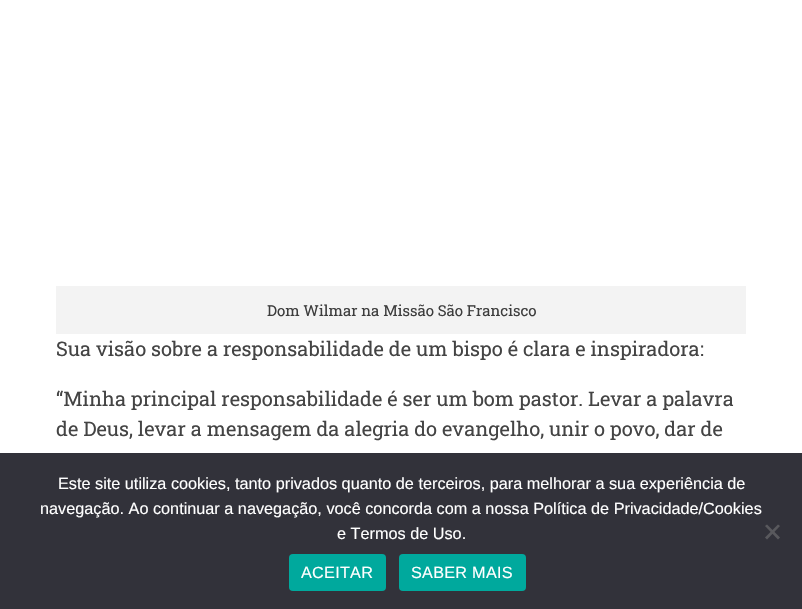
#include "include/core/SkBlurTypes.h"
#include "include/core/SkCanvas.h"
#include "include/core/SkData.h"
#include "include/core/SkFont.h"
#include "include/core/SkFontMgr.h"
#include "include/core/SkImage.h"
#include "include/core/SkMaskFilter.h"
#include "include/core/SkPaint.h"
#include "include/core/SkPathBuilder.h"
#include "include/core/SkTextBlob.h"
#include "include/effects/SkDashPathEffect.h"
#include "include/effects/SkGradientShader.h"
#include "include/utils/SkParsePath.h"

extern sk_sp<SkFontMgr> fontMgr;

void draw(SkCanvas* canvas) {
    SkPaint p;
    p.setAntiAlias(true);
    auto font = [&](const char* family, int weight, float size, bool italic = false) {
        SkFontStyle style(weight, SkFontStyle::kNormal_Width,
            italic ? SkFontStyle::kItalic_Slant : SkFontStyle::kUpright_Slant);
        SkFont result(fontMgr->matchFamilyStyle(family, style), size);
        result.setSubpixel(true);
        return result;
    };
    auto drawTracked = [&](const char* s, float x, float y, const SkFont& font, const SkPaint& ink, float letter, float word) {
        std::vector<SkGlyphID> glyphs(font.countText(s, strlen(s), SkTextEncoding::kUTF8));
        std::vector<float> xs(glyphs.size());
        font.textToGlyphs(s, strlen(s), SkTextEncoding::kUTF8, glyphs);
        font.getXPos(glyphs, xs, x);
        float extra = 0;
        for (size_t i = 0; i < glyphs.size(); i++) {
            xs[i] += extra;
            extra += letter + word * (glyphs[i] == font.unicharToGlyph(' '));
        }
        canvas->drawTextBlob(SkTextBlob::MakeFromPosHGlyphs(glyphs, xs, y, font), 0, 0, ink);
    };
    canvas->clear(0xFFFFFFFF);
    p.setColor(0xFFF3F3F3);
    canvas->drawRect(SkRect::MakeLTRB(56, 286, 746, 334), p);
    auto font1 = font("Roboto Slab", 400, 15);
    p.setColor(0xFF3D3D3D);
    canvas->drawString("Dom Wilmar na Missão São Francisco", 267, 316, font1, p);
    auto font2 = font("Roboto Slab", 400, 20);
    p.setColor(0xFF444444);
    {
        const struct { const char* s; float x, y; } items[] = {
            {"Sua visão sobre a responsabilidade de um bispo é clara e inspiradora:", 56, 356},
            {"“Minha principal responsabilidade é ser um bom pastor. Levar a palavra", 56, 406},
            {"de Deus, levar a mensagem da alegria do evangelho, unir o povo, dar de", 56, 436},
        };
        for (auto [s, x, y] : items) {
            canvas->drawString(s, x, y, font2, p);
        }
    }
    p.setColor(0xFF32323A);
    canvas->drawRect(SkRect::MakeLTRB(0, 453, 802, 609), p);
    auto font3 = font("Liberation Sans", 400, 16.25f);
    p.setColor(0xFFFFFFFF);
    {
        const struct { const char* s; float x, y; } items[] = {
            {"Este site utiliza cookies, tanto privados quanto de terceiros, para melhorar a sua experiência de", 58, 489},
            {"navegação. Ao continuar a navegação, você concorda com a nossa Política de Privacidade/Cookies", 40, 514},
            {"e Termos de Uso.", 337, 539},
        };
        for (auto [s, x, y] : items) {
            canvas->drawString(s, x, y, font3, p);
        }
    }
    p.setColor(0xFF59595D);
    canvas->drawPath(SkPathBuilder().moveTo(778, 524.5f).lineTo(780, 526).lineTo(767, 539.5f).lineTo(765, 537.5f).close().detach(), p);
    canvas->drawPath(SkPathBuilder().moveTo(765, 526).lineTo(767, 524.5f).lineTo(780, 537.5f).lineTo(778, 539.5f).close().detach(), p);
    p.setColor(0xFF00A99D);
    canvas->drawRoundRect(SkRect::MakeLTRB(289, 554, 386, 591), 4, 4, p);
    p.setColor(0xFFFFFFFF);
    drawTracked("ACEITAR", 301, 578, font3, p, 0.25f, 0);
    p.setColor(0xFF00A99D);
    canvas->drawRoundRect(SkRect::MakeLTRB(399, 554, 526, 591), 4, 4, p);
    p.setColor(0xFFFFFFFF);
    drawTracked("SABER MAIS", 411, 578, font3, p, 0.25f, 0);
}
